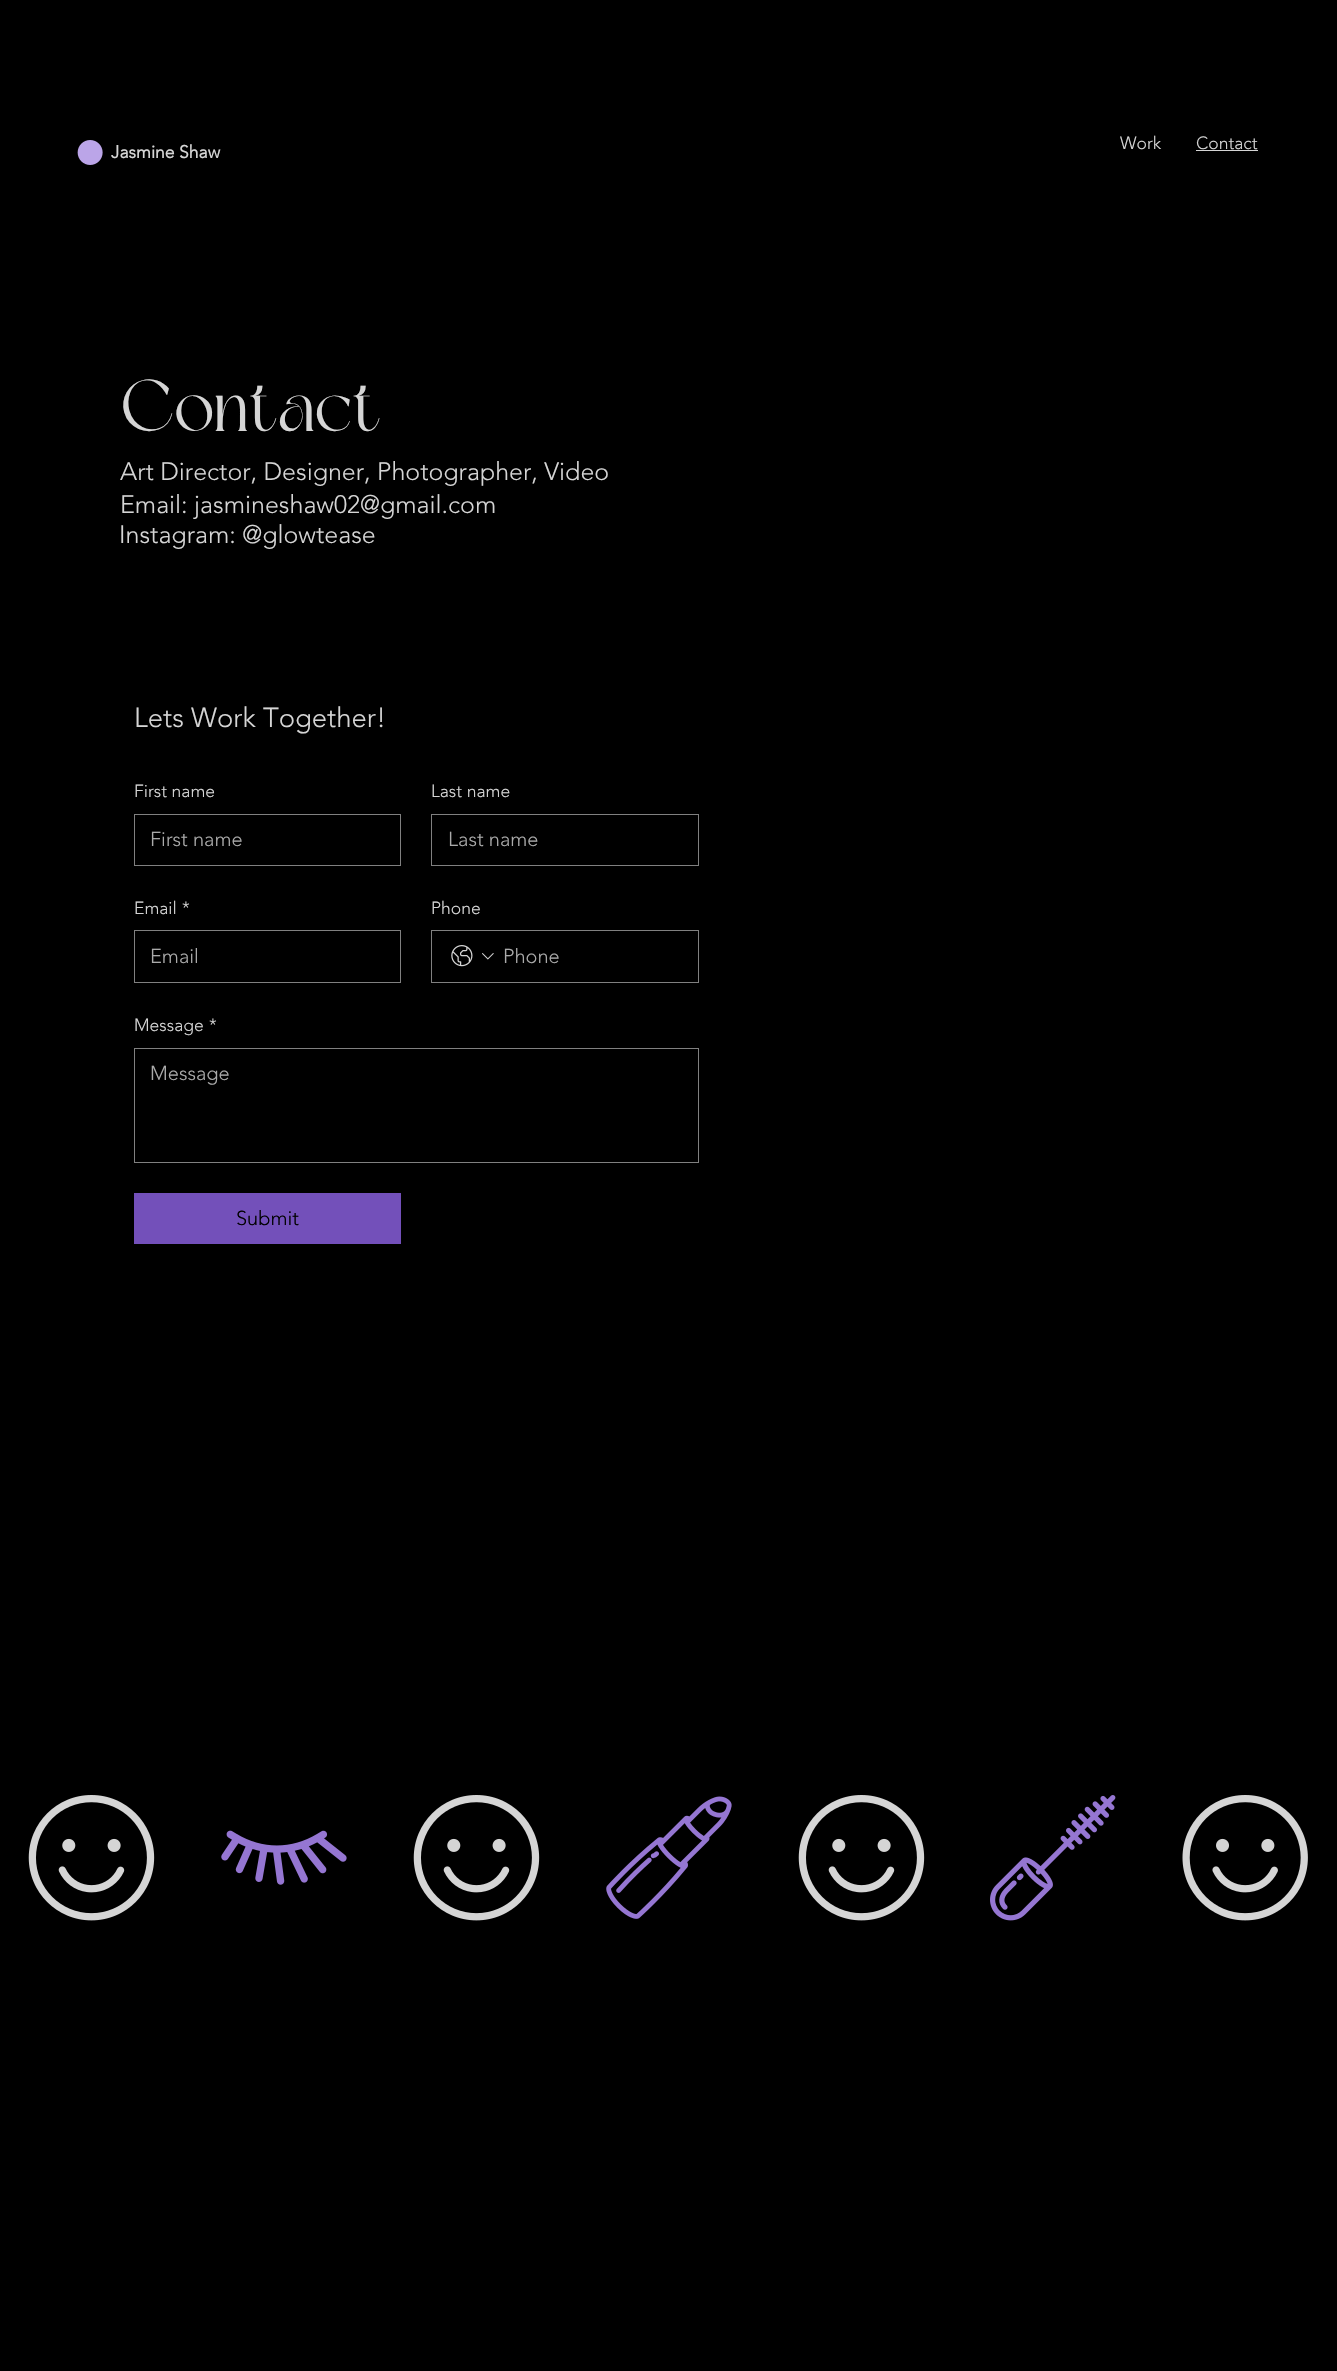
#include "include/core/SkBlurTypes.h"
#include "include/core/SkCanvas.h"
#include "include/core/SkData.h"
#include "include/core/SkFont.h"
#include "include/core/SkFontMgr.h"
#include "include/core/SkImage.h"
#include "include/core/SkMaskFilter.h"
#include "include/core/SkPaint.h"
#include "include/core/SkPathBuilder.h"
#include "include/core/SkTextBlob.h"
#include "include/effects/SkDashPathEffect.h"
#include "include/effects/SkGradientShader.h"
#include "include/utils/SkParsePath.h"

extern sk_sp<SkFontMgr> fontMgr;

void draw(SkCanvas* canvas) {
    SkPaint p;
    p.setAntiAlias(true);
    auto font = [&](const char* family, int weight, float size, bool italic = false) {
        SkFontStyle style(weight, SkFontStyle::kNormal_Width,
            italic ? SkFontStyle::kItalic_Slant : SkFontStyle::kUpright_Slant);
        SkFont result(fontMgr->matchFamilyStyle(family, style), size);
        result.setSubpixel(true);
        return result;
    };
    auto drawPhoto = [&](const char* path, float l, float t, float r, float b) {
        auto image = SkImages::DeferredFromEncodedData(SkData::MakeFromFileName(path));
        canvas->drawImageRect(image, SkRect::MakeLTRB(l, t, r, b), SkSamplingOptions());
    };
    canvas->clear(0xFF000000);
    auto font1 = font("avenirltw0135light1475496", 300, 17.5f);
    p.setColor(0xFFD5D5D5);
    canvas->drawString("Work", 1120, 149, font1, p);
    canvas->drawString("Contact", 1196, 149, font1, p);
    canvas->drawRect(SkRect::MakeLTRB(1196, 150, 1258, 151), p);
    drawPhoto("media/1.png", 77, 140, 103, 165);
    auto font2 = font("avenirltw0135light1475496", 700, 17.5f);
    canvas->drawString("Jasmine Shaw", 111, 158, font2, p);
    auto font3 = font("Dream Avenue", 400, 73);
    canvas->drawString("Contact", 121, 431, font3, p);
    auto font4 = font("avenirltw0135light1475496", 300, 25);
    {
        const struct { const char* s; float x, y; } items[] = {
            {"Art Director, Designer, Photographer, Video", 120, 480},
            {"Email: jasmineshaw02@gmail.com", 120, 513},
            {"Instagram: @glowtease", 119, 543},
        };
        for (auto [s, x, y] : items) {
            canvas->drawString(s, x, y, font4, p);
        }
    }
    auto font5 = font("avenirltw0135light1475496", 300, 27.5f);
    canvas->drawString("Lets Work Together!", 134, 727, font5, p);
    canvas->drawString("First name", 134, 797, font1, p);
    canvas->drawString("Last name", 431, 797, font1, p);
    p.setStyle(SkPaint::kStroke_Style);
    p.setStrokeWidth(1);
    p.setColor(0xFF808080);
    canvas->drawRect(SkRect::MakeLTRB(134.5f, 814.5f, 400.5f, 865.5f), p);
    auto font6 = font("avenirltw0135light1475496", 300, 20);
    p.setStyle(SkPaint::kFill_Style);
    p.setColor(0xFFAAAAAA);
    canvas->drawString("First name", 150, 846, font6, p);
    p.setStyle(SkPaint::kStroke_Style);
    p.setColor(0xFF808080);
    canvas->drawRect(SkRect::MakeLTRB(431.5f, 814.5f, 698.5f, 865.5f), p);
    p.setStyle(SkPaint::kFill_Style);
    p.setColor(0xFFAAAAAA);
    canvas->drawString("Last name", 448, 846, font6, p);
    p.setColor(0xFFD5D5D5);
    {
        const struct { const char* s; float x, y; } items[] = {
            {"Email", 134, 914},
            {"*", 182, 914},
            {"Phone", 431, 914},
        };
        for (auto [s, x, y] : items) {
            canvas->drawString(s, x, y, font1, p);
        }
    }
    p.setStyle(SkPaint::kStroke_Style);
    p.setColor(0xFF808080);
    canvas->drawRect(SkRect::MakeLTRB(134.5f, 930.5f, 400.5f, 982.5f), p);
    p.setStyle(SkPaint::kFill_Style);
    p.setColor(0xFFAAAAAA);
    canvas->drawString("Email", 150, 963, font6, p);
    p.setStyle(SkPaint::kStroke_Style);
    p.setColor(0xFF808080);
    canvas->drawRect(SkRect::MakeLTRB(431.5f, 930.5f, 698.5f, 982.5f), p);
    drawPhoto("media/2.png", 451, 945, 473, 967);
    drawPhoto("media/3.png", 482, 953, 494, 960);
    p.setStyle(SkPaint::kFill_Style);
    p.setColor(0xFFAAAAAA);
    canvas->drawString("Phone", 503, 963, font6, p);
    p.setColor(0xFFD5D5D5);
    canvas->drawString("Message", 134, 1031, font1, p);
    canvas->drawString("*", 209, 1031, font1, p);
    p.setStyle(SkPaint::kStroke_Style);
    p.setColor(0xFF808080);
    canvas->drawRect(SkRect::MakeLTRB(134.5f, 1048.5f, 698.5f, 1162.5f), p);
    p.setStyle(SkPaint::kFill_Style);
    p.setColor(0xFFAAAAAA);
    canvas->drawString("Message", 150, 1080, font6, p);
    p.setColor(0xFF7350BA);
    canvas->drawRect(SkRect::MakeLTRB(134, 1193, 401, 1244), p);
    p.setColor(0xFF000000);
    canvas->drawString("Submit", 236, 1225, font6, p);
    drawPhoto("media/4.png", 28, 1795, 155, 1921);
    drawPhoto("media/5.png", 221, 1830, 347, 1885);
    drawPhoto("media/4.png", 413, 1795, 540, 1921);
    drawPhoto("media/6.png", 606, 1796, 732, 1919);
    drawPhoto("media/4.png", 798, 1795, 925, 1921);
    drawPhoto("media/7.png", 990, 1795, 1116, 1921);
    drawPhoto("media/8.png", 1182, 1795, 1308, 1921);
}
